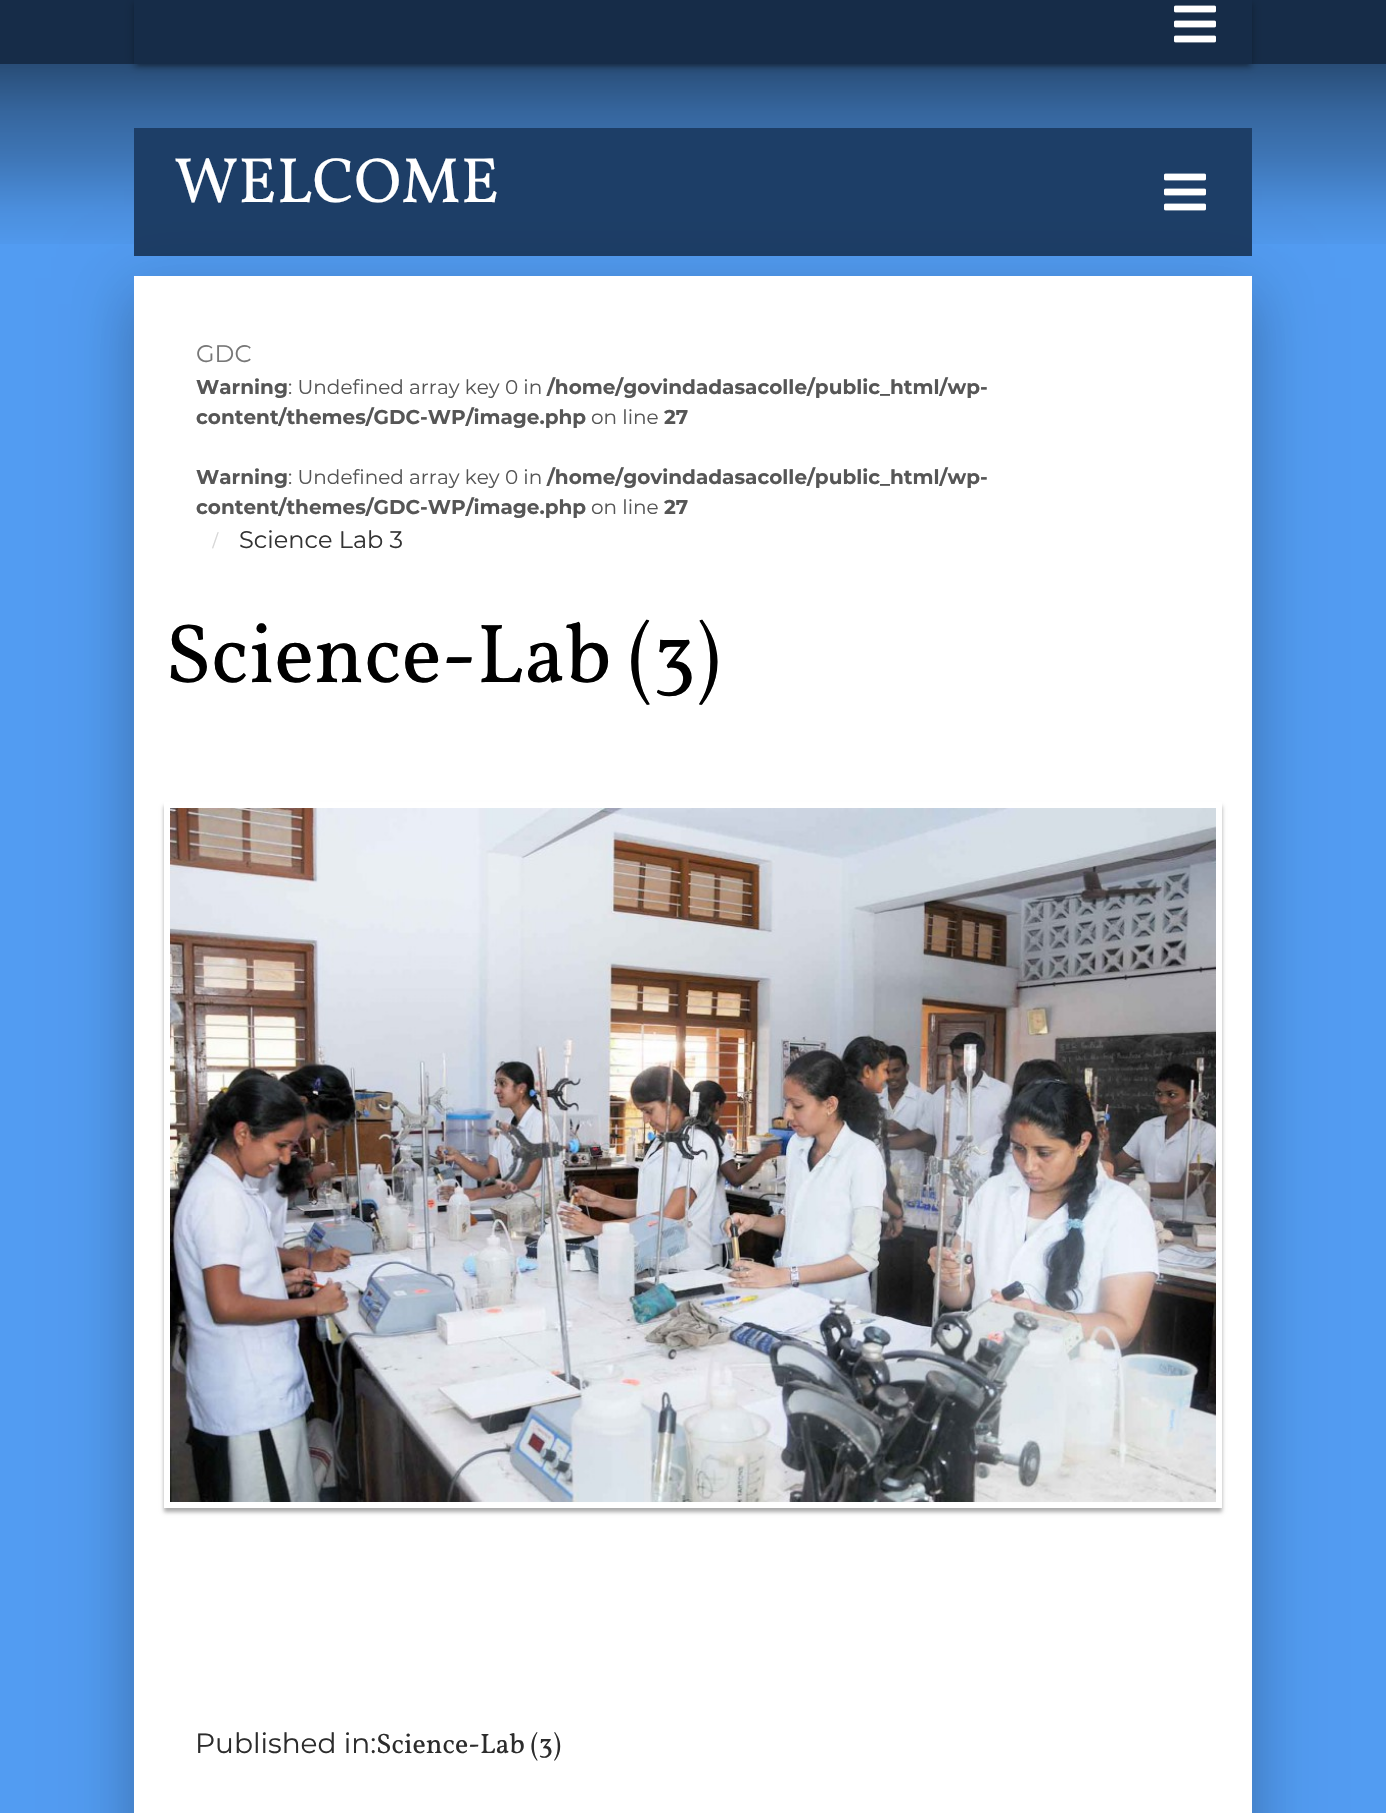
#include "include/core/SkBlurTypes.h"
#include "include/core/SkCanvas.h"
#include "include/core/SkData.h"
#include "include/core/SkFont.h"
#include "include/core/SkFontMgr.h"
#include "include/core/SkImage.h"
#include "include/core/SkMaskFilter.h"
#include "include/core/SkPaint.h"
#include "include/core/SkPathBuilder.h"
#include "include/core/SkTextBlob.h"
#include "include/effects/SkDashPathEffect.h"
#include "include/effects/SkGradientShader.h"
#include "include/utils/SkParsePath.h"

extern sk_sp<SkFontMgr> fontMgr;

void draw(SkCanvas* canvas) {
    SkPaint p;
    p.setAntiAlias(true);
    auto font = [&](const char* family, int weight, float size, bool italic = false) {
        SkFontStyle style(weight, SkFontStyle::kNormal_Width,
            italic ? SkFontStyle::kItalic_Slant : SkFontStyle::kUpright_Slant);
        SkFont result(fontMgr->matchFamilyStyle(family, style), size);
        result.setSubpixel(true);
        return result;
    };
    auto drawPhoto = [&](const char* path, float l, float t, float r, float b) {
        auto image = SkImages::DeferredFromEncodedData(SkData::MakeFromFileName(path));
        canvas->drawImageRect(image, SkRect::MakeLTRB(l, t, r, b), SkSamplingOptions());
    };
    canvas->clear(0xFF529CF2);
    p.setColor(0xFF162C48);
    canvas->drawRect(SkRect::MakeLTRB(0, 0, 1386, 64), p);
    canvas->save();
    canvas->clipPath(SkPathBuilder(SkPathFillType::kEvenOdd).moveTo(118, 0).lineTo(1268, 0).lineTo(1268, 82).lineTo(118, 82).close().moveTo(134, 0).lineTo(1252, 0).lineTo(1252, 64).lineTo(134, 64).close().detach(), true);
    p.setColor(0x33000000);
    p.setMaskFilter(SkMaskFilter::MakeBlur(kNormal_SkBlurStyle, 5));
    canvas->drawRect(SkRect::MakeLTRB(134, 2, 1252, 66), p);
    p.setMaskFilter(nullptr);
    canvas->restore();
    canvas->save();
    canvas->clipRect(SkRect::MakeLTRB(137, 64, 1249, 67));
    p.setColor(0x1F000000);
    p.setMaskFilter(SkMaskFilter::MakeBlur(kNormal_SkBlurStyle, 1));
    canvas->drawRect(SkRect::MakeLTRB(138, 10, 1248, 66), p);
    p.setMaskFilter(nullptr);
    canvas->restore();
    canvas->save();
    canvas->clipPath(SkPathBuilder(SkPathFillType::kEvenOdd).moveTo(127, 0).lineTo(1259, 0).lineTo(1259, 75).lineTo(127, 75).close().moveTo(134, 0).lineTo(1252, 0).lineTo(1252, 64).lineTo(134, 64).close().detach(), true);
    p.setColor(0x24000000);
    p.setMaskFilter(SkMaskFilter::MakeBlur(kNormal_SkBlurStyle, 2));
    canvas->drawRect(SkRect::MakeLTRB(134, 4, 1252, 68), p);
    p.setMaskFilter(nullptr);
    canvas->restore();
    drawPhoto("media/1.png", 1174, 5, 1216, 43);
    {
        const SkColor colors[] = {0x82000000, 0x59000000, 0x3D000000, 0x17000000, 0x00000000};
        const float stops[] = {0, 0.25f, 0.5f, 0.75f, 1};
        const SkPoint ends[] = {{693, 64}, {693, 256}};
        p.setShader(SkGradientShader::MakeLinear(ends, colors, stops, 5, SkTileMode::kClamp));
        p.setAlpha(255);
    }
    canvas->drawRect(SkRect::MakeLTRB(0, 64, 1386, 244), p);
    p.setShader(nullptr);
    p.setColor(0xFF1D3E67);
    canvas->drawRect(SkRect::MakeLTRB(134, 128, 1252, 256), p);
    p.setColor(0x1F000000);
    p.setMaskFilter(SkMaskFilter::MakeBlur(kNormal_SkBlurStyle, 30));
    canvas->drawRect(SkRect::MakeLTRB(124, 278, 1262, 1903), p);
    p.setMaskFilter(nullptr);
    auto font1 = font("Vollkorn", 400, 64);
    p.setColor(0xFFFFFFFF);
    canvas->drawString("WELCOME", 174, 202, font1, p);
    drawPhoto("media/2.png", 1164, 173, 1206, 211);
    p.setColor(0x24000000);
    p.setMaskFilter(SkMaskFilter::MakeBlur(kNormal_SkBlurStyle, 24));
    canvas->drawRect(SkRect::MakeLTRB(130, 304, 1256, 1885), p);
    p.setMaskFilter(nullptr);
    p.setColor(0xFFFFFFFF);
    canvas->drawRect(SkRect::MakeLTRB(134, 276, 1252, 1813), p);
    auto font2 = font("Montserrat", 400, 24);
    p.setColor(0xFF777777);
    canvas->drawString("GDC", 196, 362, font2, p);
    auto font3 = font("Montserrat", 700, 20);
    p.setColor(0xFF565656);
    canvas->drawString("Warning", 196, 394, font3, p);
    auto font4 = font("Montserrat", 400, 20);
    canvas->drawString(": Undefined array key 0 in", 288, 394, font4, p);
    canvas->drawString("/home/govindadasacolle/public_html/wp-", 547, 394, font3, p);
    canvas->drawString("content/themes/GDC-WP/image.php", 196, 424, font3, p);
    canvas->drawString("on line", 591, 424, font4, p);
    canvas->drawString("27", 664, 424, font3, p);
    canvas->drawString("Warning", 196, 484, font3, p);
    canvas->drawString(": Undefined array key 0 in", 288, 484, font4, p);
    canvas->drawString("/home/govindadasacolle/public_html/wp-", 547, 484, font3, p);
    canvas->drawString("content/themes/GDC-WP/image.php", 196, 514, font3, p);
    canvas->drawString("on line", 591, 514, font4, p);
    canvas->drawString("27", 664, 514, font3, p);
    auto font5 = font("Liberation Serif", 400, 24);
    p.setColor(0xFFD6D6D6);
    canvas->drawString("/", 212, 548, font5, p);
    p.setColor(0xFF333333);
    canvas->drawString("Science Lab 3", 239, 548, font2, p);
    auto font6 = font("Vollkorn", 400, 84);
    p.setColor(0xFF000000);
    canvas->drawString("Science-Lab (3)", 165, 682, font6, p);
    canvas->save();
    canvas->clipPath(SkPathBuilder(SkPathFillType::kEvenOdd).moveTo(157, 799).lineTo(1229, 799).lineTo(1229, 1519).lineTo(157, 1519).close().moveTo(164, 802).lineTo(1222, 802).lineTo(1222, 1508).lineTo(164, 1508).close().detach(), true);
    p.setColor(0xFFAAAAAA);
    p.setMaskFilter(SkMaskFilter::MakeBlur(kNormal_SkBlurStyle, 2));
    canvas->drawRect(SkRect::MakeLTRB(164, 806, 1222, 1512), p);
    p.setMaskFilter(nullptr);
    canvas->restore();
    drawPhoto("media/3.png", 170, 808, 1216, 1502);
    auto font7 = font("Montserrat", 400, 28);
    p.setColor(0xFF2C2C2C);
    canvas->drawString("Published in:", 195, 1753, font7, p);
    auto font8 = font("Vollkorn", 400, 28);
    canvas->drawString("Science-Lab (3)", 376, 1753, font8, p);
}
